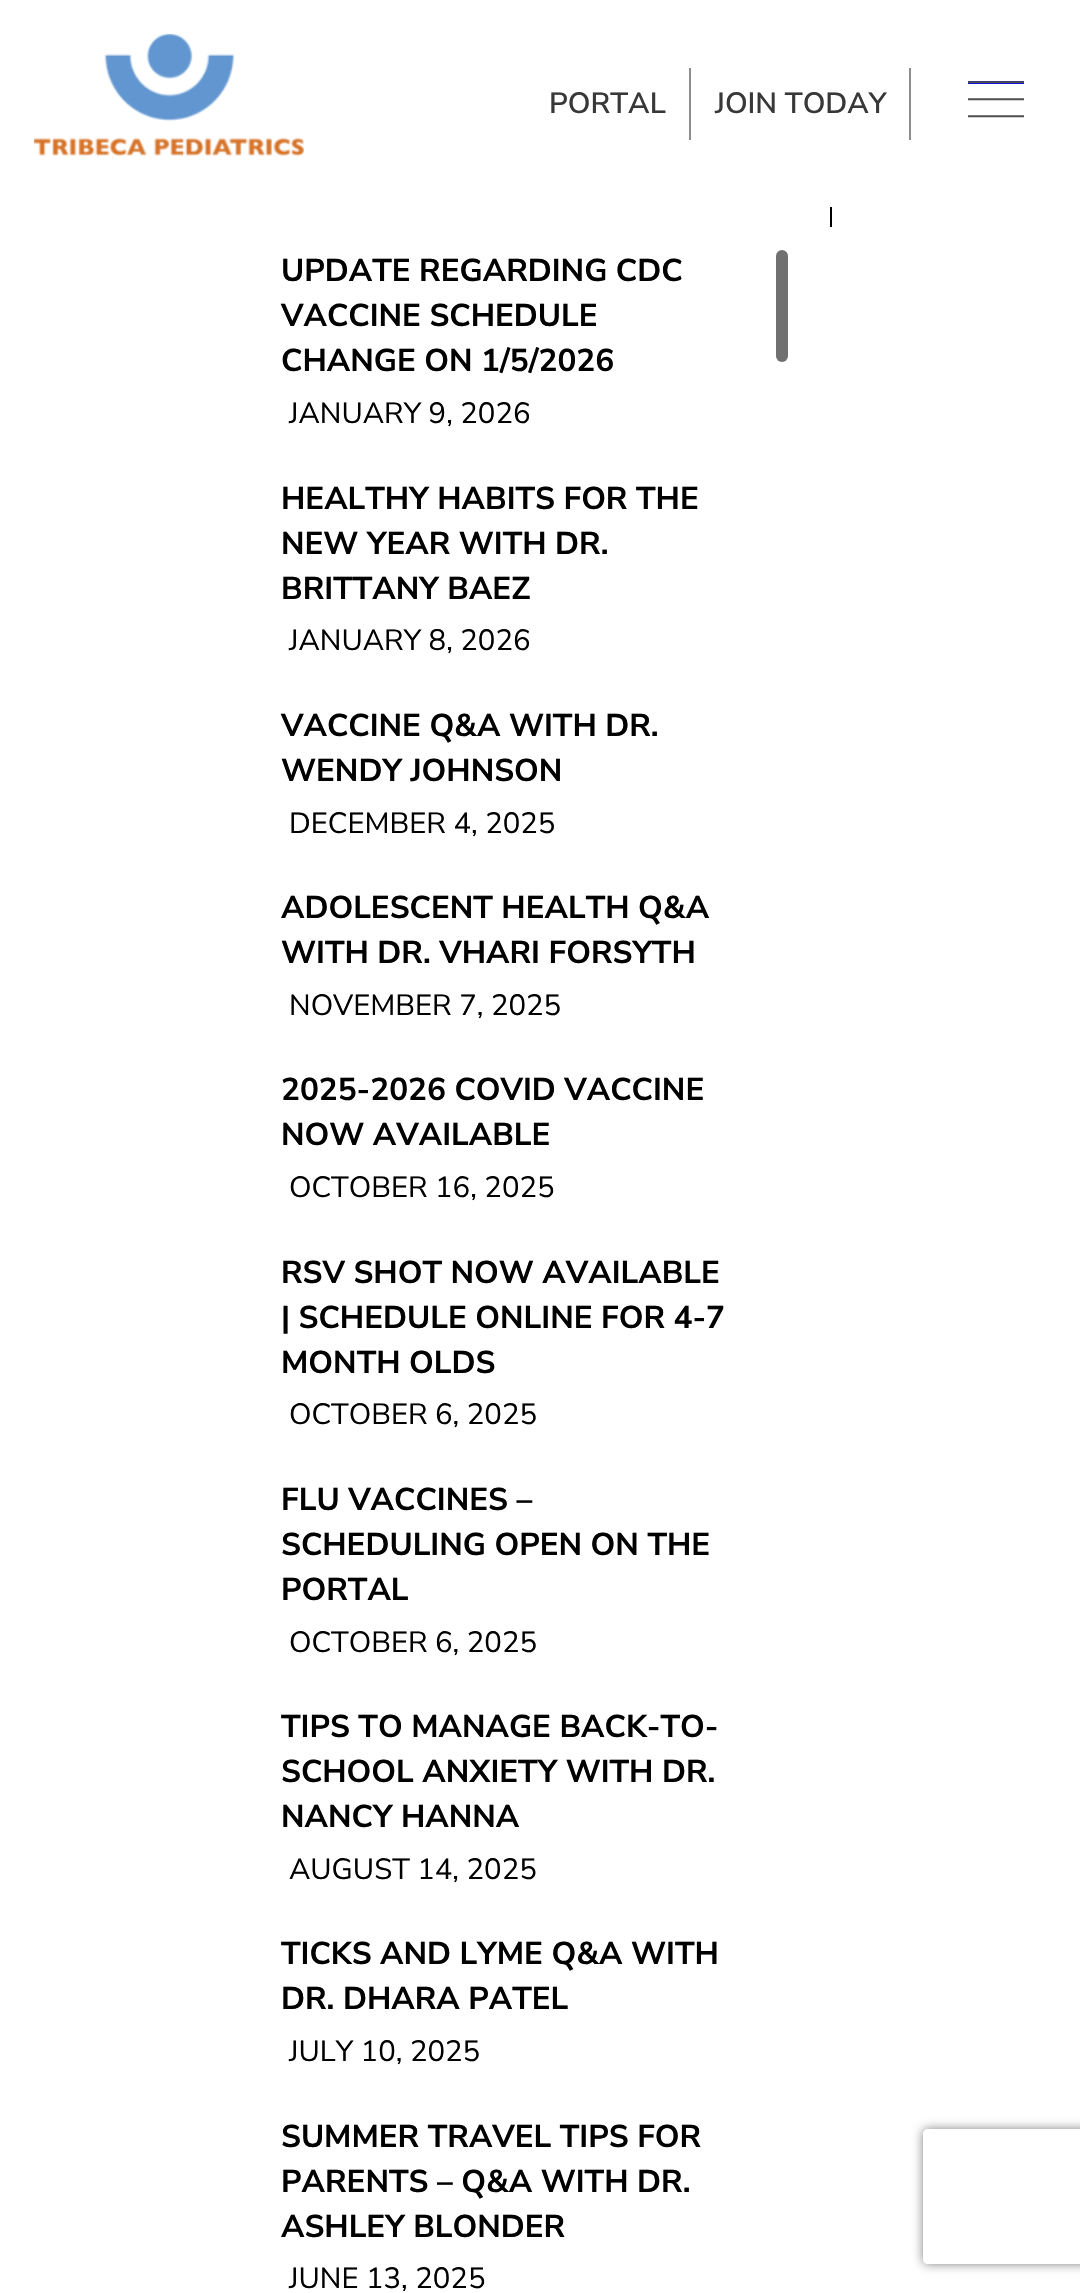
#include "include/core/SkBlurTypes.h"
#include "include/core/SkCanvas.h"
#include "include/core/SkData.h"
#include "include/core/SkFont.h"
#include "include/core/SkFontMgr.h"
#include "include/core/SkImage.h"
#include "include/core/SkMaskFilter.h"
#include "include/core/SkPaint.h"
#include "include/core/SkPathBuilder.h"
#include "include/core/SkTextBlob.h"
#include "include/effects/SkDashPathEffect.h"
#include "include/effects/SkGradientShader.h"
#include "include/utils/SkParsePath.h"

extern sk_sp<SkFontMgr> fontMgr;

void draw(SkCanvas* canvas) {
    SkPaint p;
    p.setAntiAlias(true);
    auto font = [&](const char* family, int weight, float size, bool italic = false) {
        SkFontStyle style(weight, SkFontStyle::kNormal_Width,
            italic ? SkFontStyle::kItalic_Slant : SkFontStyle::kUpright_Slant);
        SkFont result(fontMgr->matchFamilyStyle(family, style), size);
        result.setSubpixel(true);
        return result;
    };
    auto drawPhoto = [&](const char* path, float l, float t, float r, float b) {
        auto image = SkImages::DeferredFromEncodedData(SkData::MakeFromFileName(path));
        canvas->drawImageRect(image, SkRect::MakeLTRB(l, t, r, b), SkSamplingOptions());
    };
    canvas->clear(0xFFFFFFFF);
    drawPhoto("media/1.png", 34, 34, 304, 156);
    p.setColor(0xFF8D8D8D);
    canvas->drawRect(SkRect::MakeLTRB(689, 68, 691, 140), p);
    auto font1 = font("Nunito Sans", 600, 29.25f);
    p.setColor(0xFF373837);
    canvas->drawString("PORTAL", 549, 113, font1, p);
    p.setColor(0xFF8D8D8D);
    canvas->drawRect(SkRect::MakeLTRB(909, 68, 911, 140), p);
    p.setColor(0xFF373837);
    canvas->drawString("JOIN TODAY", 715, 113, font1, p);
    p.setColor(0xFF0000FF);
    canvas->drawRect(SkRect::MakeLTRB(968, 81, 1024, 84), p);
    canvas->save();
    canvas->clipRect(SkRect::MakeLTRB(968, 77, 1024, 133));
    p.setStyle(SkPaint::kStroke_Style);
    p.setStrokeWidth(1.7f);
    p.setColor(0xFF4E4E4E);
    canvas->drawPath(SkPathBuilder().moveTo(967.5f, 82).lineTo(1024, 82).lineTo(1024, 82.5f).lineTo(967.5f, 82.5f).close().moveTo(967.5f, 99).lineTo(1024, 99).lineTo(1024, 99.5f).lineTo(967.5f, 99.5f).close().moveTo(967.5f, 116).lineTo(1024, 116).lineTo(1024, 116.5f).lineTo(967.5f, 116.5f).close().detach(), p);
    canvas->restore();
    p.setStyle(SkPaint::kFill_Style);
    p.setColor(0xFF000000);
    canvas->drawRect(SkRect::MakeLTRB(830, 207, 832, 227), p);
    auto font2 = font("Nunito Sans", 700, 31.5f);
    {
        const struct { const char* s; float x, y; } items[] = {
            {"UPDATE REGARDING CDC", 281, 281},
            {"VACCINE SCHEDULE", 281, 326},
            {"CHANGE ON 1/5/2026", 281, 371},
        };
        for (auto [s, x, y] : items) {
            canvas->drawString(s, x, y, font2, p);
        }
    }
    auto font3 = font("Nunito Sans", 400, 29.25f);
    canvas->drawString("JANUARY 9, 2026", 289, 423, font3, p);
    {
        const struct { const char* s; float x, y; } items[] = {
            {"HEALTHY HABITS FOR THE", 281, 509},
            {"NEW YEAR WITH DR.", 281, 554},
            {"BRITTANY BAEZ", 281, 599},
        };
        for (auto [s, x, y] : items) {
            canvas->drawString(s, x, y, font2, p);
        }
    }
    canvas->drawString("JANUARY 8, 2026", 289, 650, font3, p);
    canvas->drawString("VACCINE Q&A WITH DR.", 281, 736, font2, p);
    canvas->drawString("WENDY JOHNSON", 281, 781, font2, p);
    canvas->drawString("DECEMBER 4, 2025", 289, 833, font3, p);
    canvas->drawString("ADOLESCENT HEALTH Q&A", 281, 918, font2, p);
    canvas->drawString("WITH DR. VHARI FORSYTH", 281, 963, font2, p);
    canvas->drawString("NOVEMBER 7, 2025", 289, 1015, font3, p);
    canvas->drawString("2025-2026 COVID VACCINE", 281, 1100, font2, p);
    canvas->drawString("NOW AVAILABLE", 281, 1145, font2, p);
    canvas->drawString("OCTOBER 16, 2025", 289, 1197, font3, p);
    {
        const struct { const char* s; float x, y; } items[] = {
            {"RSV SHOT NOW AVAILABLE", 281, 1283},
            {"| SCHEDULE ONLINE FOR 4-7", 281, 1328},
            {"MONTH OLDS", 281, 1373},
        };
        for (auto [s, x, y] : items) {
            canvas->drawString(s, x, y, font2, p);
        }
    }
    canvas->drawString("OCTOBER 6, 2025", 289, 1424, font3, p);
    {
        const struct { const char* s; float x, y; } items[] = {
            {"FLU VACCINES –", 281, 1510},
            {"SCHEDULING OPEN ON THE", 281, 1555},
            {"PORTAL", 281, 1600},
        };
        for (auto [s, x, y] : items) {
            canvas->drawString(s, x, y, font2, p);
        }
    }
    canvas->drawString("OCTOBER 6, 2025", 289, 1652, font3, p);
    {
        const struct { const char* s; float x, y; } items[] = {
            {"TIPS TO MANAGE BACK-TO-", 281, 1737},
            {"SCHOOL ANXIETY WITH DR.", 281, 1782},
            {"NANCY HANNA", 281, 1827},
        };
        for (auto [s, x, y] : items) {
            canvas->drawString(s, x, y, font2, p);
        }
    }
    canvas->drawString("AUGUST 14, 2025", 289, 1879, font3, p);
    canvas->drawString("TICKS AND LYME Q&A WITH", 281, 1964, font2, p);
    canvas->drawString("DR. DHARA PATEL", 281, 2009, font2, p);
    canvas->drawString("JULY 10, 2025", 289, 2061, font3, p);
    {
        const struct { const char* s; float x, y; } items[] = {
            {"SUMMER TRAVEL TIPS FOR", 281, 2147},
            {"PARENTS – Q&A WITH DR.", 281, 2192},
            {"ASHLEY BLONDER", 281, 2237},
        };
        for (auto [s, x, y] : items) {
            canvas->drawString(s, x, y, font2, p);
        }
    }
    canvas->drawString("JUNE 13, 2025", 289, 2288, font3, p);
    p.setColor(0xFF707070);
    canvas->drawRoundRect(SkRect::MakeLTRB(776, 250, 788, 362), 6, 6, p);
    canvas->save();
    canvas->clipPath(SkPathBuilder(SkPathFillType::kEvenOdd).moveTo(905, 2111).lineTo(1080, 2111).lineTo(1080, 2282).lineTo(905, 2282).close().moveTo(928, 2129).lineTo(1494, 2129).cubicTo(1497, 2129, 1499, 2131, 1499, 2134).lineTo(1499, 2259).cubicTo(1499, 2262, 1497, 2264, 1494, 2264).lineTo(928, 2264).cubicTo(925, 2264, 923, 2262, 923, 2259).lineTo(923, 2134).cubicTo(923, 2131, 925, 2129, 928, 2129).close().detach(), true);
    p.setColor(0xFF808080);
    p.setMaskFilter(SkMaskFilter::MakeBlur(kNormal_SkBlurStyle, 5.5f));
    canvas->drawRoundRect(SkRect::MakeLTRB(923, 2129, 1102, 2264), 5, 5, p);
    p.setMaskFilter(nullptr);
    canvas->restore();
}
